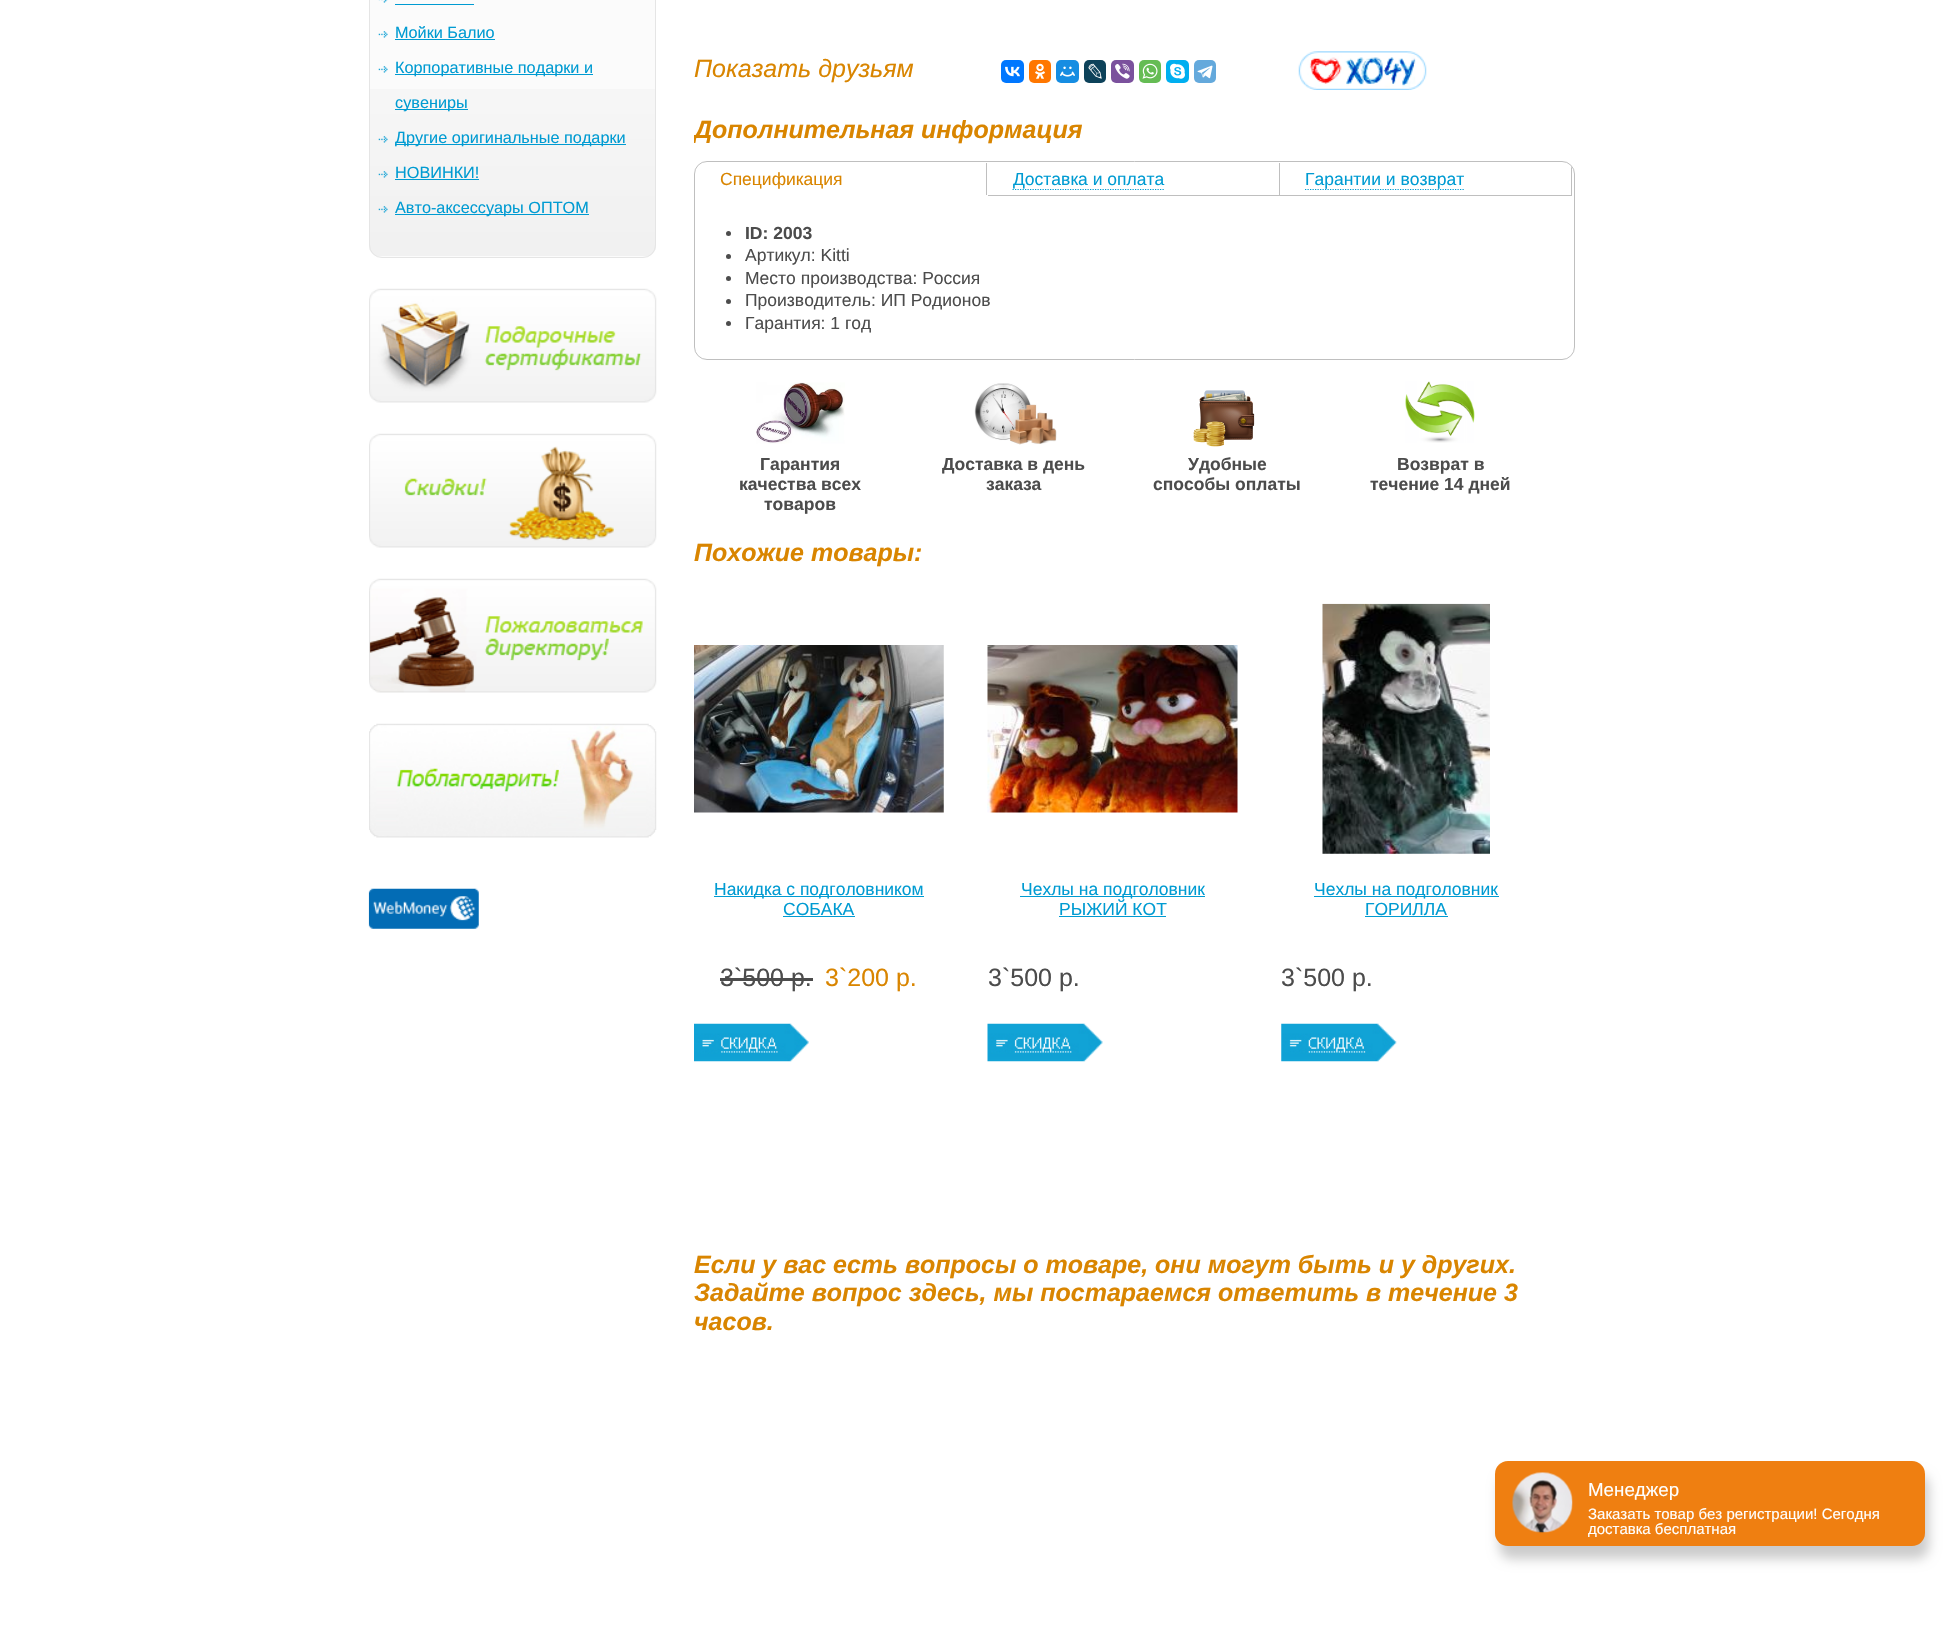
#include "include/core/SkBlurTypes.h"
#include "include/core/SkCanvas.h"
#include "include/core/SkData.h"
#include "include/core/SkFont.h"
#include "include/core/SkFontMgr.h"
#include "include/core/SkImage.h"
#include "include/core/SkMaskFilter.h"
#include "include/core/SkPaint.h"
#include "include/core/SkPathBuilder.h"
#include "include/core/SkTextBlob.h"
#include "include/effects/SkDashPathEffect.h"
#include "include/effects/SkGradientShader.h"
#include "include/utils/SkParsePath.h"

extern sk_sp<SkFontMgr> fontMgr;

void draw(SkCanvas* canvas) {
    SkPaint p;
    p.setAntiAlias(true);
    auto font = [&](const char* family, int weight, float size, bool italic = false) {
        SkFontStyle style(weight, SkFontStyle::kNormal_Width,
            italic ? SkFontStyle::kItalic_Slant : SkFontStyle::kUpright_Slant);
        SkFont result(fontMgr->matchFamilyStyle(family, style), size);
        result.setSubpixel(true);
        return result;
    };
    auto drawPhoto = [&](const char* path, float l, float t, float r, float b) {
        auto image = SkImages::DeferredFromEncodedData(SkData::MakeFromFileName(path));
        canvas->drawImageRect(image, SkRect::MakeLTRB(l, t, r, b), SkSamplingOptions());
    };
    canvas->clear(0xFFFFFFFF);
    p.setColor(0xFFFBFBFB);
    canvas->drawRoundRect(SkRect::MakeLTRB(369, -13, 656, 258), 13, 13, p);
    drawPhoto("media/1.png", 369, 89, 656, 256);
    p.setStyle(SkPaint::kStroke_Style);
    p.setStrokeWidth(1);
    p.setColor(0xFFE5E5E5);
    canvas->drawRoundRect(SkRect::MakeLTRB(369.5f, -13.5f, 655.5f, 257.5f), 12.5f, 12.5f, p);
    drawPhoto("media/2.png", 378, 0, 388, 3);
    p.setStyle(SkPaint::kFill_Style);
    p.setColor(0xFF009BD2);
    canvas->drawRect(SkRect::MakeLTRB(395, 4, 474, 5), p);
    drawPhoto("media/3.png", 378, 31, 388, 38);
    auto font1 = font("Liberation Sans", 400, 16.25f);
    canvas->drawString("Мойки Балио", 395, 38, font1, p);
    canvas->drawRect(SkRect::MakeLTRB(395, 39, 495, 40), p);
    drawPhoto("media/3.png", 378, 66, 388, 73);
    canvas->drawRect(SkRect::MakeLTRB(395, 74, 593, 75), p);
    canvas->drawString("Корпоративные подарки и", 395, 73, font1, p);
    canvas->drawRect(SkRect::MakeLTRB(395, 109, 468, 110), p);
    canvas->drawString("сувениры", 395, 108, font1, p);
    drawPhoto("media/4.png", 378, 136, 388, 143);
    canvas->drawRect(SkRect::MakeLTRB(395, 144, 626, 145), p);
    canvas->drawString("Другие оригинальные подарки", 395, 143, font1, p);
    drawPhoto("media/5.png", 378, 171, 388, 178);
    canvas->drawString("НОВИНКИ!", 395, 178, font1, p);
    canvas->drawRect(SkRect::MakeLTRB(395, 179, 479, 180), p);
    drawPhoto("media/6.png", 378, 206, 388, 213);
    canvas->drawRect(SkRect::MakeLTRB(395, 214, 589, 215), p);
    canvas->drawString("Авто-аксессуары ОПТОМ", 395, 213, font1, p);
    drawPhoto("media/7.png", 369, 288, 657, 403);
    drawPhoto("media/8.png", 369, 433, 657, 548);
    drawPhoto("media/9.png", 369, 578, 657, 693);
    drawPhoto("media/10.png", 369, 723, 657, 838);
    drawPhoto("media/11.png", 368, 888, 479, 929);
    auto font2 = font("Liberation Sans", 400, 25, true);
    p.setColor(0xFFD98500);
    canvas->drawString("Показать друзьям", 694, 77, font2, p);
    p.setColor(0xFF0077FF);
    canvas->drawRoundRect(SkRect::MakeLTRB(1001, 60, 1024, 83), 5, 5, p);
    drawPhoto("media/12.png", 1005, 66, 1020, 77);
    p.setColor(0xFFFF7700);
    canvas->drawRoundRect(SkRect::MakeLTRB(1029, 60, 1051, 83), 5, 5, p);
    drawPhoto("media/13.png", 1035, 63, 1045, 79);
    p.setColor(0xFF168DE2);
    canvas->drawRoundRect(SkRect::MakeLTRB(1056, 60, 1079, 83), 5, 5, p);
    drawPhoto("media/14.png", 1060, 66, 1075, 77);
    p.setColor(0xFF0D425A);
    canvas->drawRoundRect(SkRect::MakeLTRB(1084, 60, 1106, 83), 5, 5, p);
    drawPhoto("media/15.png", 1088, 63, 1102, 79);
    p.setColor(0xFF7B519D);
    canvas->drawRoundRect(SkRect::MakeLTRB(1111, 60, 1134, 83), 5, 5, p);
    drawPhoto("media/16.png", 1115, 63, 1130, 79);
    p.setColor(0xFF65BC54);
    canvas->drawRoundRect(SkRect::MakeLTRB(1139, 60, 1161, 83), 5, 5, p);
    drawPhoto("media/17.png", 1142, 63, 1158, 79);
    p.setColor(0xFF00AFF0);
    canvas->drawRoundRect(SkRect::MakeLTRB(1166, 60, 1189, 83), 5, 5, p);
    drawPhoto("media/18.png", 1170, 63, 1185, 79);
    p.setColor(0xFF64A9DC);
    canvas->drawRoundRect(SkRect::MakeLTRB(1194, 60, 1216, 83), 5, 5, p);
    drawPhoto("media/19.png", 1197, 65, 1213, 79);
    drawPhoto("media/20.png", 1298, 51, 1427, 90);
    canvas->save();
    canvas->clipRect(SkRect::MakeLTRB(694, 0, 1581, 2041));
    auto font3 = font("Liberation Sans", 700, 25, true);
    p.setColor(0xFFD98500);
    canvas->drawString("Дополнительная информация", 694, 138, font3, p);
    canvas->restore();
    p.setStyle(SkPaint::kStroke_Style);
    p.setColor(0xFFBFBFBF);
    canvas->drawRoundRect(SkRect::MakeLTRB(694.5f, 161.5f, 1574.5f, 359.5f), 12.5f, 12.5f, p);
    p.setStyle(SkPaint::kFill_Style);
    canvas->drawRect(SkRect::MakeLTRB(986, 163, 987, 195), p);
    auto font4 = font("Liberation Sans", 400, 17.5f);
    p.setColor(0xFFD98500);
    canvas->drawString("Спецификация", 720, 185, font4, p);
    p.setColor(0xFFBFBFBF);
    canvas->drawRect(SkRect::MakeLTRB(1279, 163, 1280, 196), p);
    canvas->drawRect(SkRect::MakeLTRB(988, 195, 1279, 196), p);
    p.setStyle(SkPaint::kStroke_Style);
    p.setStrokeWidth(1.2f);
    p.setColor(0xFF009BD2);
    p.setPathEffect(SkDashPathEffect::Make({{1.25f, 1.25f}}, 0));
    canvas->drawPath(SkPathBuilder().moveTo(1012.5f, 189.5f).lineTo(1164, 189.5f).detach(), p);
    p.setPathEffect(nullptr);
    p.setStyle(SkPaint::kFill_Style);
    canvas->drawString("Доставка и оплата", 1013, 185, font4, p);
    canvas->save();
    canvas->clipPath(SkPathBuilder().moveTo(706, 163).lineTo(1563, 163).cubicTo(1569, 163, 1574, 168, 1574, 174).lineTo(1574, 348).cubicTo(1574, 354, 1569, 359, 1563, 359).lineTo(706, 359).cubicTo(700, 359, 695, 354, 695, 348).lineTo(695, 174).cubicTo(695, 168, 700, 163, 706, 163).close().detach(), true);
    p.setColor(0xFFBFBFBF);
    canvas->drawRect(SkRect::MakeLTRB(1571, 163, 1572, 196), p);
    canvas->restore();
    canvas->drawRect(SkRect::MakeLTRB(1280, 195, 1571, 196), p);
    p.setStyle(SkPaint::kStroke_Style);
    p.setColor(0xFF009BD2);
    p.setPathEffect(SkDashPathEffect::Make({{1.25f, 1.25f}}, 0));
    canvas->drawPath(SkPathBuilder().moveTo(1305, 189.5f).lineTo(1464, 189.5f).detach(), p);
    p.setPathEffect(nullptr);
    p.setStyle(SkPaint::kFill_Style);
    canvas->drawString("Гарантии и возврат", 1305, 185, font4, p);
    p.setColor(0xFF4C4C4C);
    canvas->drawCircle(728.5f, 233.5f, 2.5f, p);
    auto font5 = font("Liberation Sans", 700, 17.5f);
    canvas->drawString("ID: 2003", 745, 239, font5, p);
    canvas->drawCircle(728.5f, 256.5f, 2.5f, p);
    canvas->drawString("Артикул: Kitti", 745, 261, font4, p);
    canvas->drawCircle(728.5f, 278.5f, 2.5f, p);
    canvas->drawString("Место производства: Россия", 745, 284, font4, p);
    canvas->drawCircle(728.5f, 301.5f, 2.5f, p);
    canvas->drawString("Производитель: ИП Родионов", 745, 306, font4, p);
    canvas->drawCircle(728.5f, 323.5f, 2.5f, p);
    canvas->drawString("Гарантия: 1 год", 745, 329, font4, p);
    drawPhoto("media/21.png", 756, 382, 845, 444);
    {
        const struct { const char* s; float x, y; } items[] = {
            {"Гарантия", 760, 470},
            {"качества всех", 739, 490},
            {"товаров", 764, 510},
        };
        for (auto [s, x, y] : items) {
            canvas->drawString(s, x, y, font5, p);
        }
    }
    drawPhoto("media/22.png", 974, 383, 1057, 445);
    canvas->drawString("Доставка в день", 942, 470, font5, p);
    canvas->drawString("заказа", 986, 490, font5, p);
    drawPhoto("media/23.png", 1193, 390, 1255, 447);
    canvas->drawString("Удобные", 1188, 470, font5, p);
    canvas->drawString("способы оплаты", 1153, 490, font5, p);
    drawPhoto("media/24.png", 1405, 381, 1475, 443);
    canvas->drawString("Возврат в", 1397, 470, font5, p);
    canvas->drawString("течение 14 дней", 1370, 490, font5, p);
    p.setColor(0xFFD98500);
    canvas->drawString("Похожие товары:", 694, 561, font3, p);
    drawPhoto("media/25.png", 694, 645, 944, 813);
    p.setColor(0xFF009BD2);
    canvas->drawRect(SkRect::MakeLTRB(714, 896, 924, 897), p);
    canvas->drawString("Накидка с подголовником", 714, 895, font4, p);
    canvas->drawString("СОБАКА", 783, 915, font4, p);
    canvas->drawRect(SkRect::MakeLTRB(783, 916, 855, 917), p);
    auto font6 = font("Liberation Sans", 400, 25);
    p.setColor(0xFF4C4C4C);
    canvas->drawString("3`500 р.", 720, 986, font6, p);
    canvas->drawRect(SkRect::MakeLTRB(720, 978, 813, 981), p);
    p.setColor(0xFFD98500);
    canvas->drawString("3`200 р.", 825, 986, font6, p);
    drawPhoto("media/26.png", 694, 1023, 809, 1062);
    drawPhoto("media/27.png", 987, 645, 1238, 813);
    p.setColor(0xFF009BD2);
    canvas->drawRect(SkRect::MakeLTRB(1020, 896, 1205, 897), p);
    canvas->drawString("Чехлы на подголовник", 1021, 895, font4, p);
    canvas->drawString("РЫЖИЙ КОТ", 1059, 915, font4, p);
    canvas->drawRect(SkRect::MakeLTRB(1059, 916, 1166, 917), p);
    p.setColor(0xFF4C4C4C);
    canvas->drawString("3`500 р.", 988, 986, font6, p);
    drawPhoto("media/28.png", 987, 1023, 1103, 1062);
    drawPhoto("media/29.png", 1322, 603, 1490, 854);
    p.setColor(0xFF009BD2);
    canvas->drawRect(SkRect::MakeLTRB(1314, 896, 1499, 897), p);
    canvas->drawString("Чехлы на подголовник", 1314, 895, font4, p);
    canvas->drawString("ГОРИЛЛА", 1365, 915, font4, p);
    canvas->drawRect(SkRect::MakeLTRB(1365, 916, 1448, 917), p);
    p.setColor(0xFF4C4C4C);
    canvas->drawString("3`500 р.", 1281, 986, font6, p);
    drawPhoto("media/30.png", 1281, 1023, 1397, 1062);
    p.setColor(0xFFD98500);
    {
        const struct { const char* s; float x, y; } items[] = {
            {"Если у вас есть вопросы о товаре, они могут быть и у других.", 694, 1273},
            {"Задайте вопрос здесь, мы постараемся ответить в течение 3", 694, 1301},
            {"часов.", 694, 1330},
        };
        for (auto [s, x, y] : items) {
            canvas->drawString(s, x, y, font3, p);
        }
    }
    p.setColor(0x33000000);
    p.setMaskFilter(SkMaskFilter::MakeBlur(kNormal_SkBlurStyle, 6));
    canvas->drawRoundRect(SkRect::MakeLTRB(1499, 1474, 1929, 1559), 13, 13, p);
    p.setMaskFilter(nullptr);
    p.setColor(0xFFEF7F11);
    canvas->drawRoundRect(SkRect::MakeLTRB(1495, 1461, 1925, 1546), 13, 13, p);
    drawPhoto("media/31.png", 1512, 1472, 1573, 1533);
    auto font7 = font("Liberation Sans", 400, 18.75f);
    p.setColor(0xFFFFFFFF);
    canvas->drawString("Менеджер", 1588, 1496, font7, p);
    auto font8 = font("Liberation Sans", 400, 15);
    canvas->drawString("Заказать товар без регистрации! Сегодня", 1588, 1519, font8, p);
    canvas->drawString("доставка бесплатная", 1588, 1534, font8, p);
}
